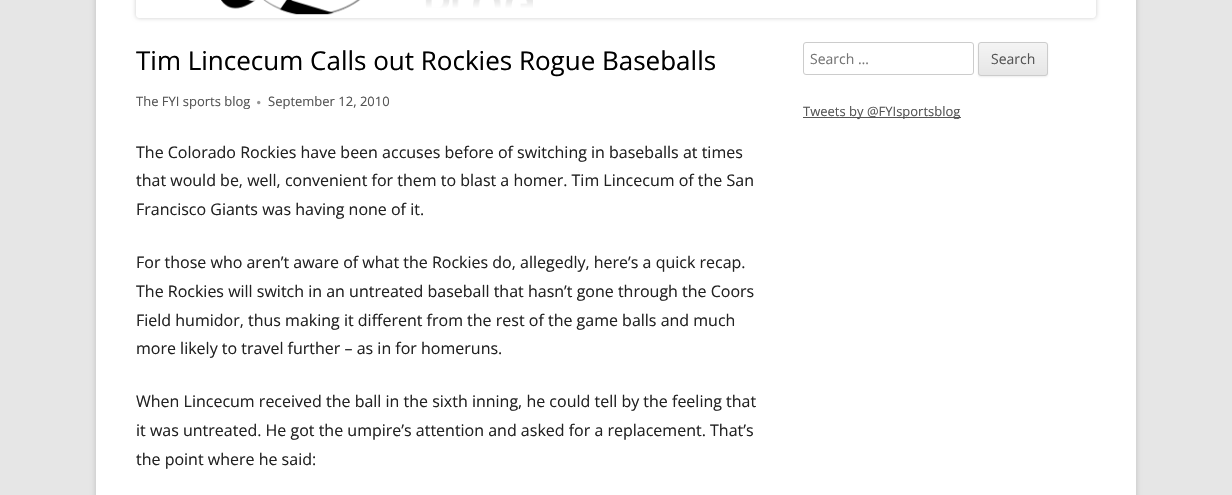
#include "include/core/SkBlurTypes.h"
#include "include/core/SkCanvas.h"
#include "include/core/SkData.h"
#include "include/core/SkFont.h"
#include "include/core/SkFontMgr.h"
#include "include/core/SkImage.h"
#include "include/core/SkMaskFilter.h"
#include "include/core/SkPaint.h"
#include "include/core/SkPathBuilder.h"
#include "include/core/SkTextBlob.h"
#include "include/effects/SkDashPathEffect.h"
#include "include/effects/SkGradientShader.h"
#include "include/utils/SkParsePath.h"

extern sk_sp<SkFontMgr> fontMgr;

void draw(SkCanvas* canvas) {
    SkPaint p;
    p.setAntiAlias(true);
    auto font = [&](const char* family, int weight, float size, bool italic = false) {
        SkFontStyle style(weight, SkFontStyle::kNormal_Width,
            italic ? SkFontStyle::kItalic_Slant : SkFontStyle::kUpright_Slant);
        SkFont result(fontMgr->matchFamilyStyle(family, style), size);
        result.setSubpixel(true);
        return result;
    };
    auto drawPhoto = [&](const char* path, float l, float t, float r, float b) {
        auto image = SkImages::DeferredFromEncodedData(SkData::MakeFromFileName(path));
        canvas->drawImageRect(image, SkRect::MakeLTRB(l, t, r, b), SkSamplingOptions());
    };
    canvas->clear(0xFFE6E6E6);
    p.setColor(0x4D646464);
    p.setMaskFilter(SkMaskFilter::MakeBlur(kNormal_SkBlurStyle, 3));
    canvas->drawRect(SkRect::MakeLTRB(96, -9, 1136, 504), p);
    p.setMaskFilter(nullptr);
    p.setColor(0xFFFFFFFF);
    canvas->drawRect(SkRect::MakeLTRB(96, 0, 1136, 495), p);
    canvas->save();
    canvas->clipPath(SkPathBuilder(SkPathFillType::kEvenOdd).moveTo(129, 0).lineTo(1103, 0).lineTo(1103, 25).lineTo(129, 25).close().moveTo(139, -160).lineTo(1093, -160).cubicTo(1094.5f, -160, 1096, -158.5f, 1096, -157).lineTo(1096, 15).cubicTo(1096, 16.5f, 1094.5f, 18, 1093, 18).lineTo(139, 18).cubicTo(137.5f, 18, 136, 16.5f, 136, 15).lineTo(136, -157).cubicTo(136, -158.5f, 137.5f, -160, 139, -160).close().detach(), true);
    p.setColor(0x33000000);
    p.setMaskFilter(SkMaskFilter::MakeBlur(kNormal_SkBlurStyle, 2));
    canvas->drawRoundRect(SkRect::MakeLTRB(136, -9, 1096, 18), 3, 3, p);
    p.setMaskFilter(nullptr);
    canvas->restore();
    drawPhoto("media/1.png", 221, 0, 533, 15);
    auto font1 = font("Open Sans", 400, 26);
    p.setColor(0xFF000000);
    canvas->drawString("Tim Lincecum Calls out Rockies Rogue Baseballs", 136, 70, font1, p);
    auto font2 = font("Open Sans", 400, 13);
    p.setColor(0xFF555555);
    canvas->drawString("The FYI sports blog", 136, 106, font2, p);
    drawPhoto("media/2.png", 257, 100, 261, 105);
    canvas->drawString("September 12, 2010", 268, 106, font2, p);
    auto font3 = font("Open Sans", 400, 16);
    p.setColor(0xFF222222);
    {
        const struct { const char* s; float x, y; } items[] = {
            {"The Colorado Rockies have been accuses before of switching in baseballs at times", 136, 158},
            {"that would be, well, convenient for them to blast a homer. Tim Lincecum of the San", 136, 186},
            {"Francisco Giants was having none of it.", 136, 215},
            {"For those who aren’t aware of what the Rockies do, allegedly, here’s a quick recap.", 136, 268},
            {"The Rockies will switch in an untreated baseball that hasn’t gone through the Coors", 136, 297},
            {"Field humidor, thus making it different from the rest of the game balls and much", 136, 326},
            {"more likely to travel further – as in for homeruns.", 136, 354},
            {"When Lincecum received the ball in the sixth inning, he could tell by the feeling that", 136, 407},
            {"it was untreated. He got the umpire’s attention and asked for a replacement. That’s", 136, 436},
            {"the point where he said:", 136, 465},
        };
        for (auto [s, x, y] : items) {
            canvas->drawString(s, x, y, font3, p);
        }
    }
    p.setStyle(SkPaint::kStroke_Style);
    p.setStrokeWidth(1);
    p.setColor(0xFFCCCCCC);
    canvas->drawRoundRect(SkRect::MakeLTRB(803.5f, 42.5f, 973.5f, 74.5f), 2.5f, 2.5f, p);
    auto font4 = font("Open Sans", 400, 14);
    p.setStyle(SkPaint::kFill_Style);
    p.setColor(0xFF757575);
    canvas->drawString("Search …", 810, 64, font4, p);
    p.setColor(0x1A404040);
    p.setMaskFilter(SkMaskFilter::MakeBlur(kNormal_SkBlurStyle, 1));
    canvas->drawRoundRect(SkRect::MakeLTRB(978, 43, 1048, 77), 3, 3, p);
    p.setMaskFilter(nullptr);
    canvas->save();
    canvas->clipPath(SkPathBuilder().moveTo(981, 42).lineTo(1045, 42).cubicTo(1046.5f, 42, 1048, 43.5f, 1048, 45).lineTo(1048, 73).cubicTo(1048, 74.5f, 1046.5f, 76, 1045, 76).lineTo(981, 76).cubicTo(979.5f, 76, 978, 74.5f, 978, 73).lineTo(978, 45).cubicTo(978, 43.5f, 979.5f, 42, 981, 42).close().detach(), true);
    {
        const SkColor colors[] = {0xFFF4F4F4, 0xFFE6E6E6};
        const float stops[] = {0, 1};
        const SkPoint ends[] = {{1013, 43}, {1013, 75}};
        p.setShader(SkGradientShader::MakeLinear(ends, colors, stops, 2, SkTileMode::kClamp));
        p.setAlpha(255);
    }
    canvas->drawRect(SkRect::MakeLTRB(978, 43, 1048, 75), p);
    canvas->restore();
    p.setStyle(SkPaint::kStroke_Style);
    p.setShader(nullptr);
    p.setColor(0xFFCCCCCC);
    canvas->drawRoundRect(SkRect::MakeLTRB(978.5f, 42.5f, 1047.5f, 75.5f), 2.5f, 2.5f, p);
    p.setStyle(SkPaint::kFill_Style);
    p.setColor(0xFF555555);
    canvas->drawString("Search", 991, 64, font4, p);
    canvas->drawRect(SkRect::MakeLTRB(803, 117, 961, 118), p);
    canvas->drawString("Tweets by @FYIsportsblog", 803, 116, font2, p);
}
